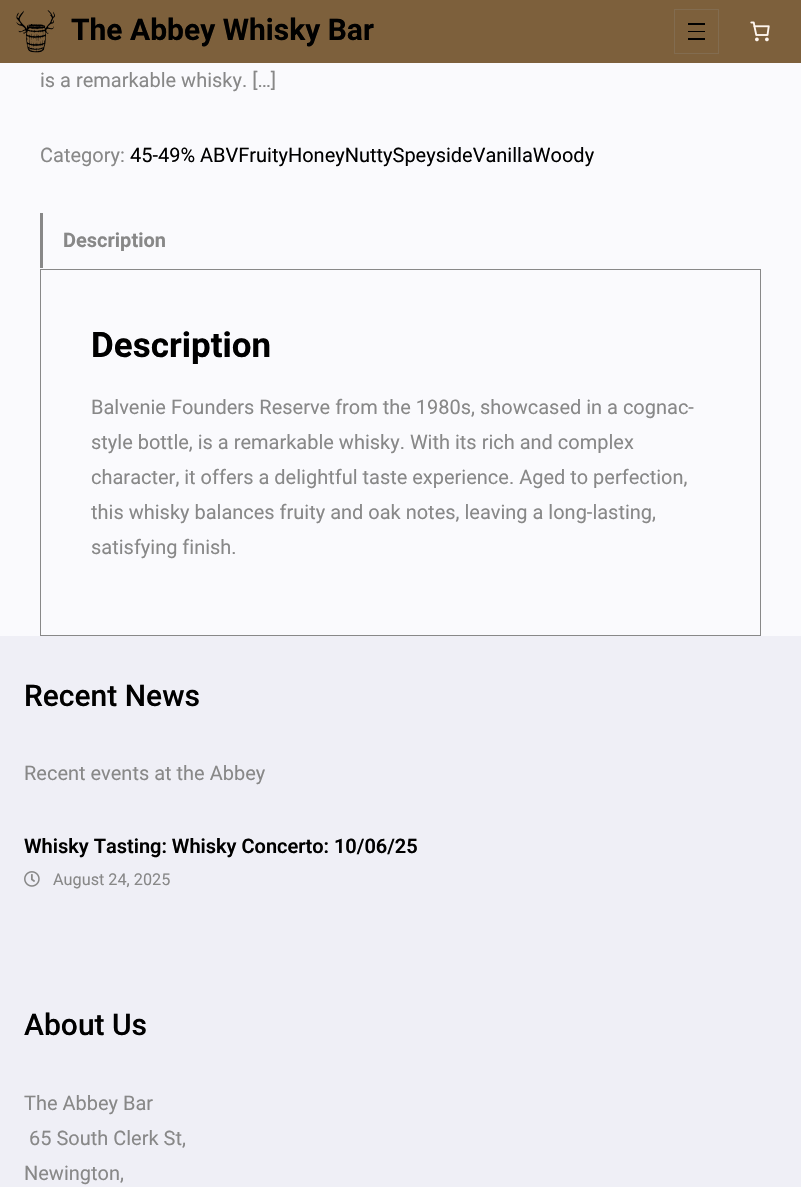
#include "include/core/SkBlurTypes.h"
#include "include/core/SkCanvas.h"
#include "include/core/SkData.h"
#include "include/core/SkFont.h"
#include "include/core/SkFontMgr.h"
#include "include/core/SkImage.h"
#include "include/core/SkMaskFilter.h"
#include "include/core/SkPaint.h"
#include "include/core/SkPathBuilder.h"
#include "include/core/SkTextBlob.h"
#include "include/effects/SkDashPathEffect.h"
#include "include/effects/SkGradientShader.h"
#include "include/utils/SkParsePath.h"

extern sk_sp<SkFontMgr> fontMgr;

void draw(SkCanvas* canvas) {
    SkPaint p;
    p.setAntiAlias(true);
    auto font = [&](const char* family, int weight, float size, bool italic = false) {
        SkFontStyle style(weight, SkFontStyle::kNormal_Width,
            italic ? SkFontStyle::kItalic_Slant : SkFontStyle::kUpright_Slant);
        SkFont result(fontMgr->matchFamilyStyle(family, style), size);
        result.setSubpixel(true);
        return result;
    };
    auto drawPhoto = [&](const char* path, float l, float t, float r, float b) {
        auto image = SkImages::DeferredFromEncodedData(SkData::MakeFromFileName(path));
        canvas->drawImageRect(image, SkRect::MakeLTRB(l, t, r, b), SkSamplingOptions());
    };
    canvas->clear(0xFFFAFAFD);
    p.setColor(0xFF7D603C);
    canvas->drawRect(SkRect::MakeLTRB(0, 0, 801, 63), p);
    drawPhoto("media/1.png", 16, 10, 55, 53);
    auto font1 = font("Roboto", 700, 30);
    p.setColor(0xFF000000);
    canvas->drawString("The Abbey Whisky Bar", 71, 40, font1, p);
    p.setStyle(SkPaint::kStroke_Style);
    p.setStrokeWidth(1);
    p.setColor(0xFF826C50);
    canvas->drawRect(SkRect::MakeLTRB(674.5f, 9.5f, 718.5f, 53.5f), p);
    p.setStyle(SkPaint::kFill_Style);
    {
        const struct { float l, t, r, b; SkColor color; } items[] = {
            {688, 23, 705, 25, 0xFF000000},
            {688, 31, 705, 32, 0xFF000000},
            {688, 38, 705, 40, 0xFF000000},
        };
        for (auto [l, t, r, b, color] : items) {
            p.setColor(color);
            canvas->drawRect(SkRect::MakeLTRB(l, t, r, b), p);
        }
    }
    drawPhoto("media/2.png", 750, 21, 770, 42);
    auto font2 = font("Roboto", 400, 20);
    p.setColor(0xFF888888);
    canvas->drawString("is a remarkable whisky. […]", 40, 87, font2, p);
    canvas->drawString("Category:", 40, 162, font2, p);
    p.setColor(0xFF000000);
    canvas->drawString("45-49% ABVFruityHoneyNuttySpeysideVanillaWoody", 130, 162, font2, p);
    p.setColor(0xFF888888);
    canvas->drawRect(SkRect::MakeLTRB(40, 213, 43, 268), p);
    auto font3 = font("Roboto", 700, 20);
    canvas->drawString("Description", 63, 247, font3, p);
    p.setStyle(SkPaint::kStroke_Style);
    canvas->drawRect(SkRect::MakeLTRB(40.5f, 269.5f, 760.5f, 635.5f), p);
    auto font4 = font("Roboto", 700, 35);
    p.setStyle(SkPaint::kFill_Style);
    p.setColor(0xFF000000);
    canvas->drawString("Description", 91, 357, font4, p);
    p.setColor(0xFF888888);
    {
        const struct { const char* s; float x, y; } items[] = {
            {"Balvenie Founders Reserve from the 1980s, showcased in a cognac-", 91, 414},
            {"style bottle, is a remarkable whisky. With its rich and complex", 91, 449},
            {"character, it offers a delightful taste experience. Aged to perfection,", 91, 484},
            {"this whisky balances fruity and oak notes, leaving a long-lasting,", 91, 519},
            {"satisfying finish.", 91, 554},
        };
        for (auto [s, x, y] : items) {
            canvas->drawString(s, x, y, font2, p);
        }
    }
    p.setColor(0xFFEFEFF6);
    canvas->drawRect(SkRect::MakeLTRB(0, 636, 801, 1187), p);
    auto font5 = font("Roboto", 500, 30);
    p.setColor(0xFF000000);
    canvas->drawString("Recent News", 24, 706, font5, p);
    p.setColor(0xFF888888);
    canvas->drawString("Recent events at the Abbey", 24, 780, font2, p);
    auto font6 = font("Roboto", 600, 20);
    p.setColor(0xFF000000);
    canvas->drawString("Whisky Tasting: Whisky Concerto: 10/06/25", 24, 853, font6, p);
    drawPhoto("media/3.png", 24, 871, 40, 887);
    auto font7 = font("Roboto", 400, 16.25f);
    p.setColor(0xFF888888);
    canvas->drawString("August 24, 2025", 53, 885, font7, p);
    p.setColor(0xFF000000);
    canvas->drawString("About Us", 24, 1035, font5, p);
    p.setColor(0xFF888888);
    {
        const struct { const char* s; float x, y; } items[] = {
            {"The Abbey Bar", 24, 1110},
            {"65 South Clerk St,", 29, 1145},
            {"Newington,", 24, 1180},
        };
        for (auto [s, x, y] : items) {
            canvas->drawString(s, x, y, font2, p);
        }
    }
}
